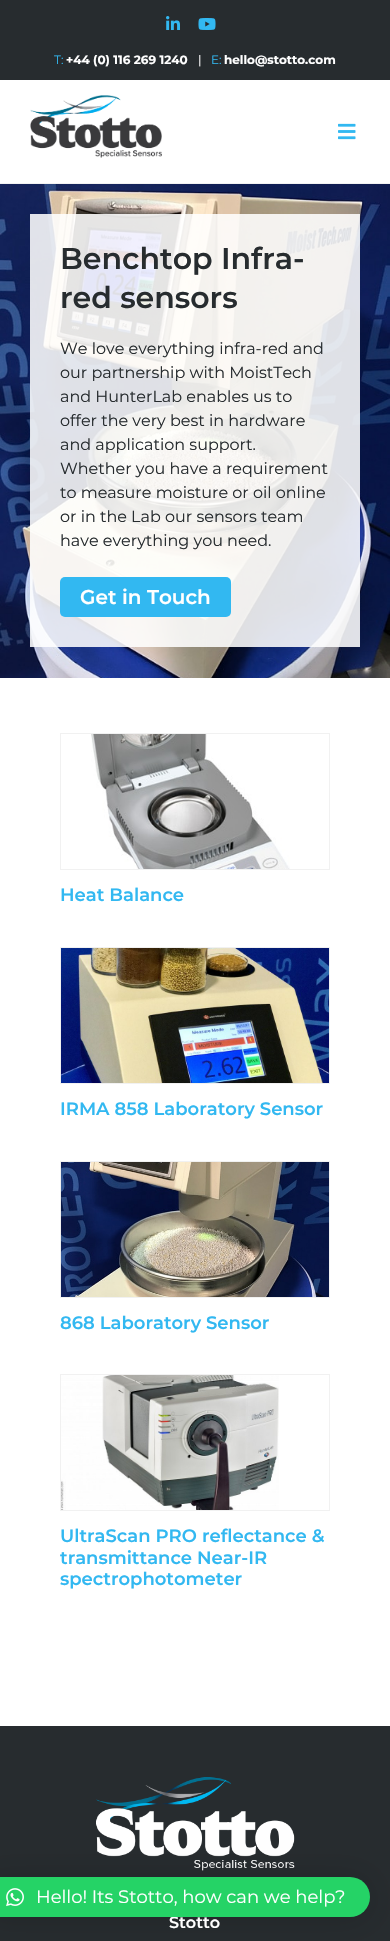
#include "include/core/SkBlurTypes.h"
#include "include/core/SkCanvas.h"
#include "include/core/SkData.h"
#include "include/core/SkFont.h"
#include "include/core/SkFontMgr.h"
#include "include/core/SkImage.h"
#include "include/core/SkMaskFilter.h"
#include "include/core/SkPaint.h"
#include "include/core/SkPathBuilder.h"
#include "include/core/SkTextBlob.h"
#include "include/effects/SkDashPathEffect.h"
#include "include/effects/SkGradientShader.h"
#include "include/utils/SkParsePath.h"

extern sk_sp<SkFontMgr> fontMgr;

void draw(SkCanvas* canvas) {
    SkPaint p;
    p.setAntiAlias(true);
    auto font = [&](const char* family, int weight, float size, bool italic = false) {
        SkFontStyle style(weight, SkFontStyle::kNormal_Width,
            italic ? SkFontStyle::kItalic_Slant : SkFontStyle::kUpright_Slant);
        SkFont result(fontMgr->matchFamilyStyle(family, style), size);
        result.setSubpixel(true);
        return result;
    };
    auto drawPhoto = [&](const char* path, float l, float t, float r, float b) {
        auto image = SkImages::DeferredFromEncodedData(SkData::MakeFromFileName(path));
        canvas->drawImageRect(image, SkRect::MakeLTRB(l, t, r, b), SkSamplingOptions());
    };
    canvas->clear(0xFFFFFFFF);
    p.setColor(0xFF272C2F);
    canvas->drawRect(SkRect::MakeLTRB(0, 0, 390, 80), p);
    drawPhoto("media/1.png", 166, 16, 180, 30);
    drawPhoto("media/2.png", 198, 18, 216, 30);
    auto font1 = font("Montserrat", 400, 12);
    p.setColor(0xFF32B8F1);
    canvas->drawString("T:", 54, 64, font1, p);
    auto font2 = font("Montserrat", 700, 12);
    p.setColor(0xFFFFFFFF);
    canvas->drawString("+44 (0) 116 269 1240", 66, 64, font2, p);
    canvas->drawString("|", 198, 64, font1, p);
    p.setColor(0xFF32B8F1);
    canvas->drawString("E:", 211, 64, font1, p);
    p.setColor(0xFFFFFFFF);
    canvas->drawString("hello@stotto.com", 224, 64, font2, p);
    p.setColor(0xFFF2F2F2);
    canvas->drawRect(SkRect::MakeLTRB(0, 183, 390, 184), p);
    drawPhoto("media/3.png", 30, 95, 162, 158);
    drawPhoto("media/4.png", 338, 123, 356, 140);
    drawPhoto("media/5.png", 0, 184, 390, 678);
    p.setColor(0xDEFFFFFF);
    canvas->drawRect(SkRect::MakeLTRB(30, 214, 360, 647), p);
    auto font3 = font("Montserrat", 600, 30);
    p.setColor(0xFF272C2F);
    canvas->drawString("Benchtop Infra-", 60, 269, font3, p);
    canvas->drawString("red sensors", 60, 308, font3, p);
    auto font4 = font("Montserrat", 400, 16);
    {
        const struct { const char* s; float x, y; } items[] = {
            {"We love everything infra-red and", 60, 354},
            {"our partnership with MoistTech", 60, 378},
            {"and HunterLab enables us to", 60, 402},
            {"offer the very best in hardware", 60, 426},
            {"and application support.", 60, 450},
            {"Whether you have a requirement", 60, 474},
            {"to measure moisture or oil online", 60, 498},
            {"or in the Lab our sensors team", 60, 522},
            {"have everything you need.", 60, 546},
        };
        for (auto [s, x, y] : items) {
            canvas->drawString(s, x, y, font4, p);
        }
    }
    p.setColor(0xFF32B8F1);
    canvas->drawRoundRect(SkRect::MakeLTRB(60, 577, 231, 617), 5, 5, p);
    auto font5 = font("Montserrat", 600, 20);
    p.setColor(0xFFFFFFFF);
    canvas->drawString("Get in Touch", 80, 604, font5, p);
    p.setStyle(SkPaint::kStroke_Style);
    p.setStrokeWidth(1);
    p.setColor(0xFFF1F1F1);
    canvas->drawRect(SkRect::MakeLTRB(60.5f, 733.5f, 329.5f, 869.5f), p);
    drawPhoto("media/6.png", 91, 734, 290, 869);
    auto font6 = font("Montserrat", 600, 18);
    p.setStyle(SkPaint::kFill_Style);
    p.setColor(0xFF32B8F1);
    canvas->drawString("Heat Balance", 60, 901, font6, p);
    p.setStyle(SkPaint::kStroke_Style);
    p.setColor(0xFFF1F1F1);
    canvas->drawRect(SkRect::MakeLTRB(60.5f, 947.5f, 329.5f, 1083.5f), p);
    drawPhoto("media/7.png", 61, 948, 329, 1083);
    p.setStyle(SkPaint::kFill_Style);
    p.setColor(0xFF32B8F1);
    canvas->drawString("IRMA 858 Laboratory Sensor", 60, 1115, font6, p);
    p.setStyle(SkPaint::kStroke_Style);
    p.setColor(0xFFF1F1F1);
    canvas->drawRect(SkRect::MakeLTRB(60.5f, 1161.5f, 329.5f, 1297.5f), p);
    drawPhoto("media/8.png", 61, 1162, 329, 1297);
    p.setStyle(SkPaint::kFill_Style);
    p.setColor(0xFF32B8F1);
    canvas->drawString("868 Laboratory Sensor", 60, 1329, font6, p);
    p.setStyle(SkPaint::kStroke_Style);
    p.setColor(0xFFF1F1F1);
    canvas->drawRect(SkRect::MakeLTRB(60.5f, 1374.5f, 329.5f, 1510.5f), p);
    drawPhoto("media/9.png", 61, 1375, 279, 1510);
    p.setStyle(SkPaint::kFill_Style);
    p.setColor(0xFF32B8F1);
    {
        const struct { const char* s; float x, y; } items[] = {
            {"UltraScan PRO reflectance &", 60, 1542},
            {"transmittance Near-IR", 60, 1564},
            {"spectrophotometer", 60, 1585},
        };
        for (auto [s, x, y] : items) {
            canvas->drawString(s, x, y, font6, p);
        }
    }
    p.setColor(0xFF272C2F);
    canvas->drawRect(SkRect::MakeLTRB(0, 1726, 390, 1941), p);
    drawPhoto("media/11.png", 96, 1777, 295, 1871);
    p.setColor(0x29000000);
    p.setMaskFilter(SkMaskFilter::MakeBlur(kNormal_SkBlurStyle, 16));
    canvas->drawRoundRect(SkRect::MakeLTRB(-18, 1879, 370, 1919), 20, 20, p);
    p.setMaskFilter(nullptr);
    auto font7 = font("Montserrat", 600, 16);
    p.setColor(0xFFFFFFFF);
    canvas->drawString("Stotto", 169, 1928, font7, p);
    p.setColor(0xFF25D366);
    canvas->drawRoundRect(SkRect::MakeLTRB(-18, 1877, 370, 1917), 20, 20, p);
    drawPhoto("media/10.png", 6, 1888, 24, 1907);
    auto font8 = font("Montserrat", 400, 18);
    p.setColor(0xFFFFFFFF);
    canvas->drawString("Hello! Its Stotto, how can we help?", 36, 1903, font8, p);
}
